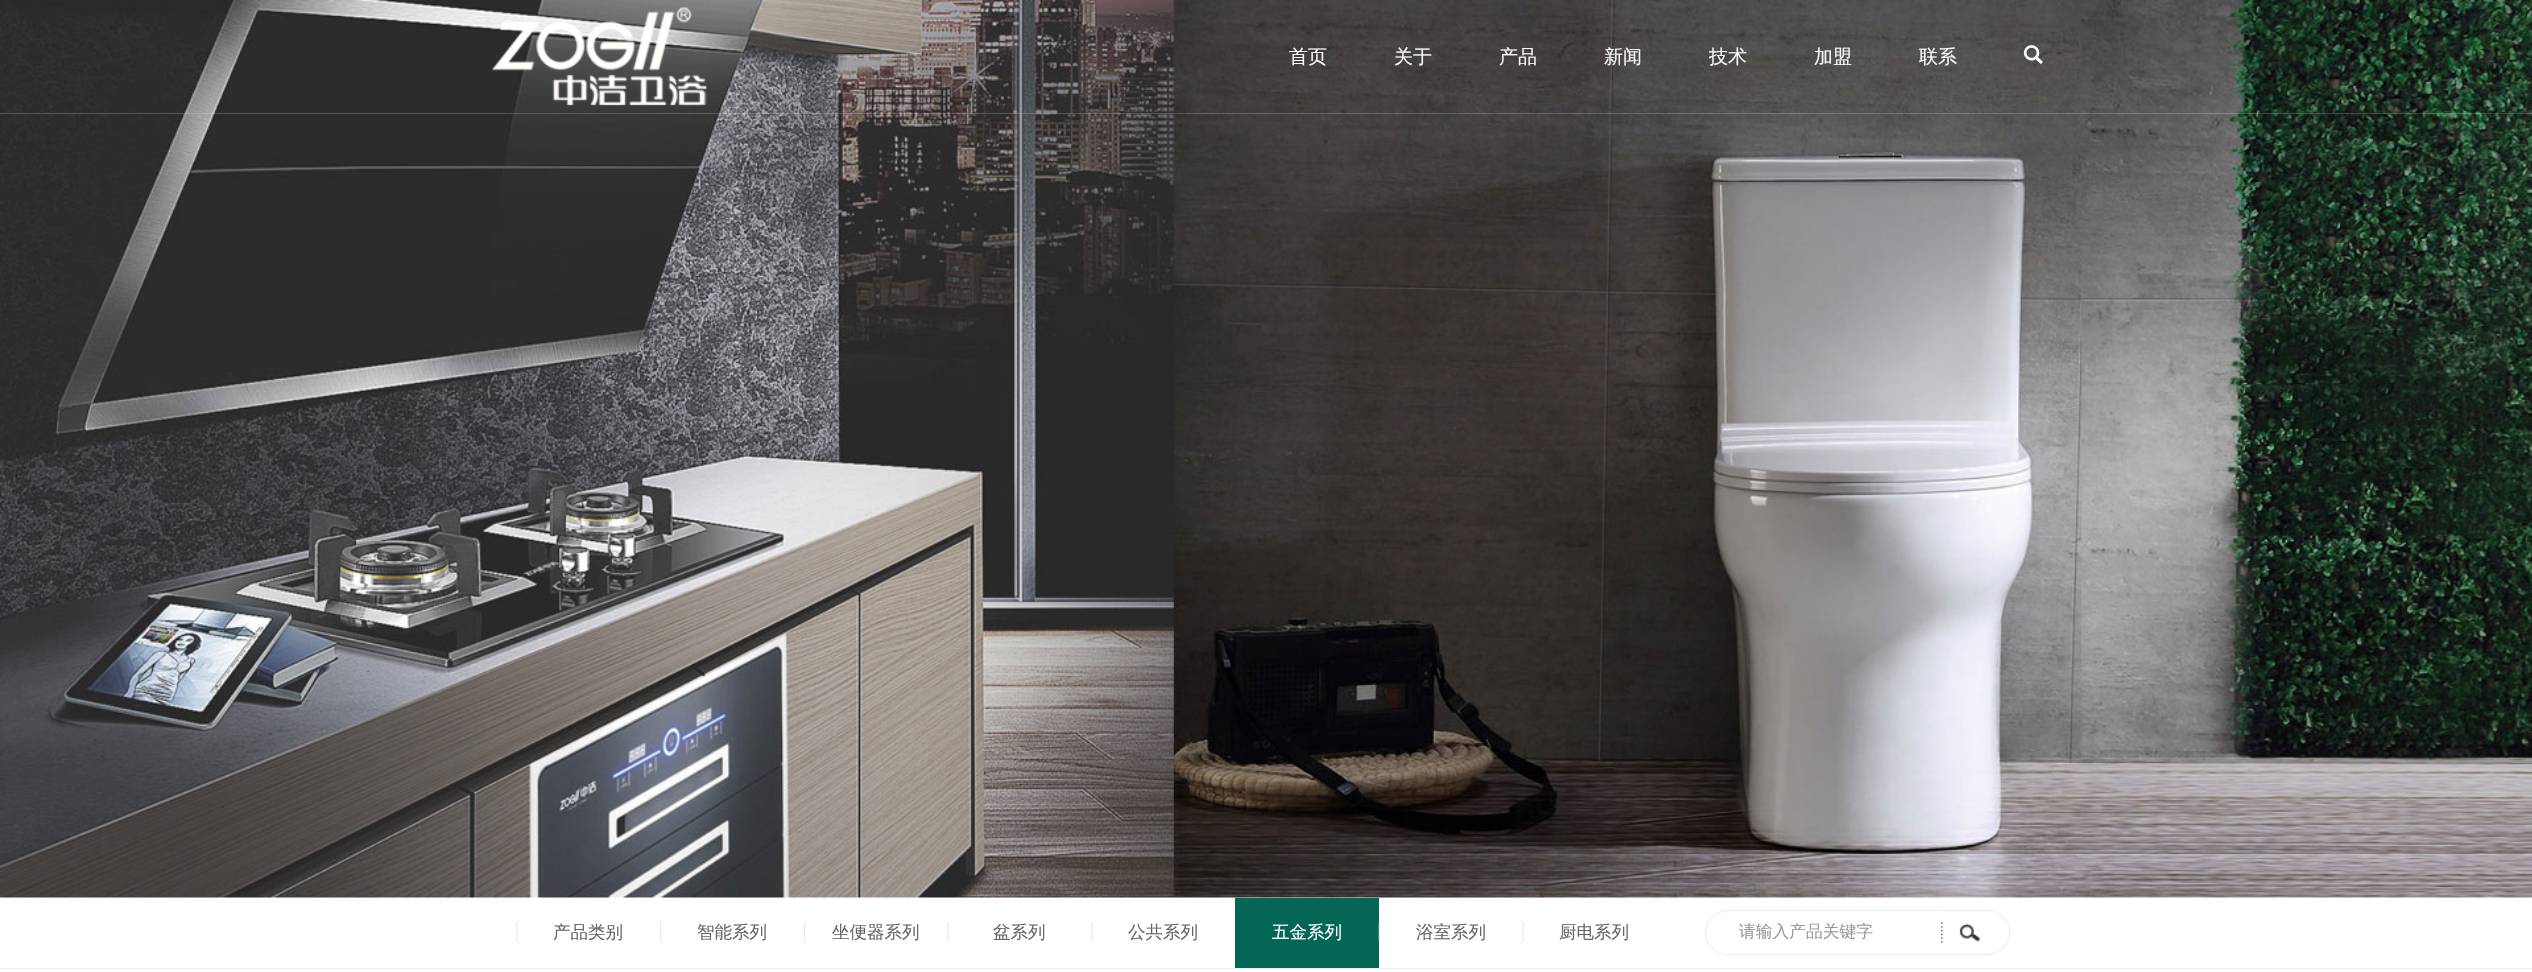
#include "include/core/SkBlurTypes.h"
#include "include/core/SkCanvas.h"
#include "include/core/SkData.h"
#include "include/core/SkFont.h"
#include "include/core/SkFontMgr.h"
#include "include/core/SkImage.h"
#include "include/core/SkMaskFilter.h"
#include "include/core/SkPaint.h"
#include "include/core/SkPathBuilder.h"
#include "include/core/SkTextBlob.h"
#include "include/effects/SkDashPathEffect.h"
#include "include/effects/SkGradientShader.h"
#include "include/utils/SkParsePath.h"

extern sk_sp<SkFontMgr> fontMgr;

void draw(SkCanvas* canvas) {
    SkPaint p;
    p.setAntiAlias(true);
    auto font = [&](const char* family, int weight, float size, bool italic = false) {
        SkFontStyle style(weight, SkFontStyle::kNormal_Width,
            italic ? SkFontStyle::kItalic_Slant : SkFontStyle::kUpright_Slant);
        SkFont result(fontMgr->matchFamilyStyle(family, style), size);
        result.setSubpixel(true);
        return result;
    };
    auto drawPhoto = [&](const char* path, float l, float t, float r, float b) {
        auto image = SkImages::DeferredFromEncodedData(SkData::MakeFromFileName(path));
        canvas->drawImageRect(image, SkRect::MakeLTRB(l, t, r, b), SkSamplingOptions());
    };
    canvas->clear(0xFFFFFFFF);
    drawPhoto("media/1.png", 0, 0, 2532, 898);
    p.setColor(0x33F0F0F0);
    canvas->drawRect(SkRect::MakeLTRB(0, 113, 2532, 114), p);
    drawPhoto("media/2.png", 492, 7, 707, 106);
    auto font1 = font("WenQuanYi Zen Hei", 500, 19);
    p.setColor(0xFFF9F9F9);
    {
        const struct { const char* s; float x, y; } items[] = {
            {"首页", 1289, 63},
            {"关于", 1394, 63},
            {"产品", 1499, 63},
            {"新闻", 1604, 63},
            {"技术", 1709, 63},
            {"加盟", 1814, 63},
            {"联系", 1919, 63},
        };
        for (auto [s, x, y] : items) {
            canvas->drawString(s, x, y, font1, p);
        }
    }
    drawPhoto("media/3.png", 2023, 45, 2043, 64);
    p.setColor(0xFFEEEEEE);
    canvas->drawRect(SkRect::MakeLTRB(0, 968, 2532, 969), p);
    drawPhoto("media/4.png", 516, 922, 518, 942);
    auto font2 = font("WenQuanYi Zen Hei", 500, 17.5f);
    p.setColor(0xFF666666);
    canvas->drawString("产品类别", 553, 938, font2, p);
    drawPhoto("media/5.png", 660, 922, 662, 942);
    canvas->drawString("智能系列", 697, 938, font2, p);
    drawPhoto("media/6.png", 803, 922, 805, 942);
    canvas->drawString("坐便器系列", 832, 938, font2, p);
    drawPhoto("media/7.png", 947, 922, 949, 942);
    canvas->drawString("盆系列", 993, 938, font2, p);
    drawPhoto("media/4.png", 1091, 922, 1093, 942);
    canvas->drawString("公共系列", 1128, 938, font2, p);
    p.setColor(0xFF046655);
    canvas->drawRect(SkRect::MakeLTRB(1235, 898, 1379, 968), p);
    p.setColor(0xFFFFFFFF);
    canvas->drawString("五金系列", 1272, 938, font2, p);
    drawPhoto("media/8.png", 1378, 922, 1380, 942);
    p.setColor(0xFF666666);
    canvas->drawString("浴室系列", 1416, 938, font2, p);
    drawPhoto("media/7.png", 1522, 922, 1524, 942);
    canvas->drawString("厨电系列", 1559, 938, font2, p);
    drawPhoto("media/9.png", 1705, 910, 1726, 955);
    p.setColor(0xFFEEEEEE);
    canvas->drawRect(SkRect::MakeLTRB(1726, 910, 1941, 911), p);
    canvas->drawRect(SkRect::MakeLTRB(1726, 954, 1941, 955), p);
    auto font3 = font("WenQuanYi Zen Hei", 500, 16.75f);
    p.setColor(0xFF999999);
    canvas->drawString("请输入产品关键字", 1739, 937, font3, p);
    drawPhoto("media/10.png", 1941, 910, 2010, 955);
}
